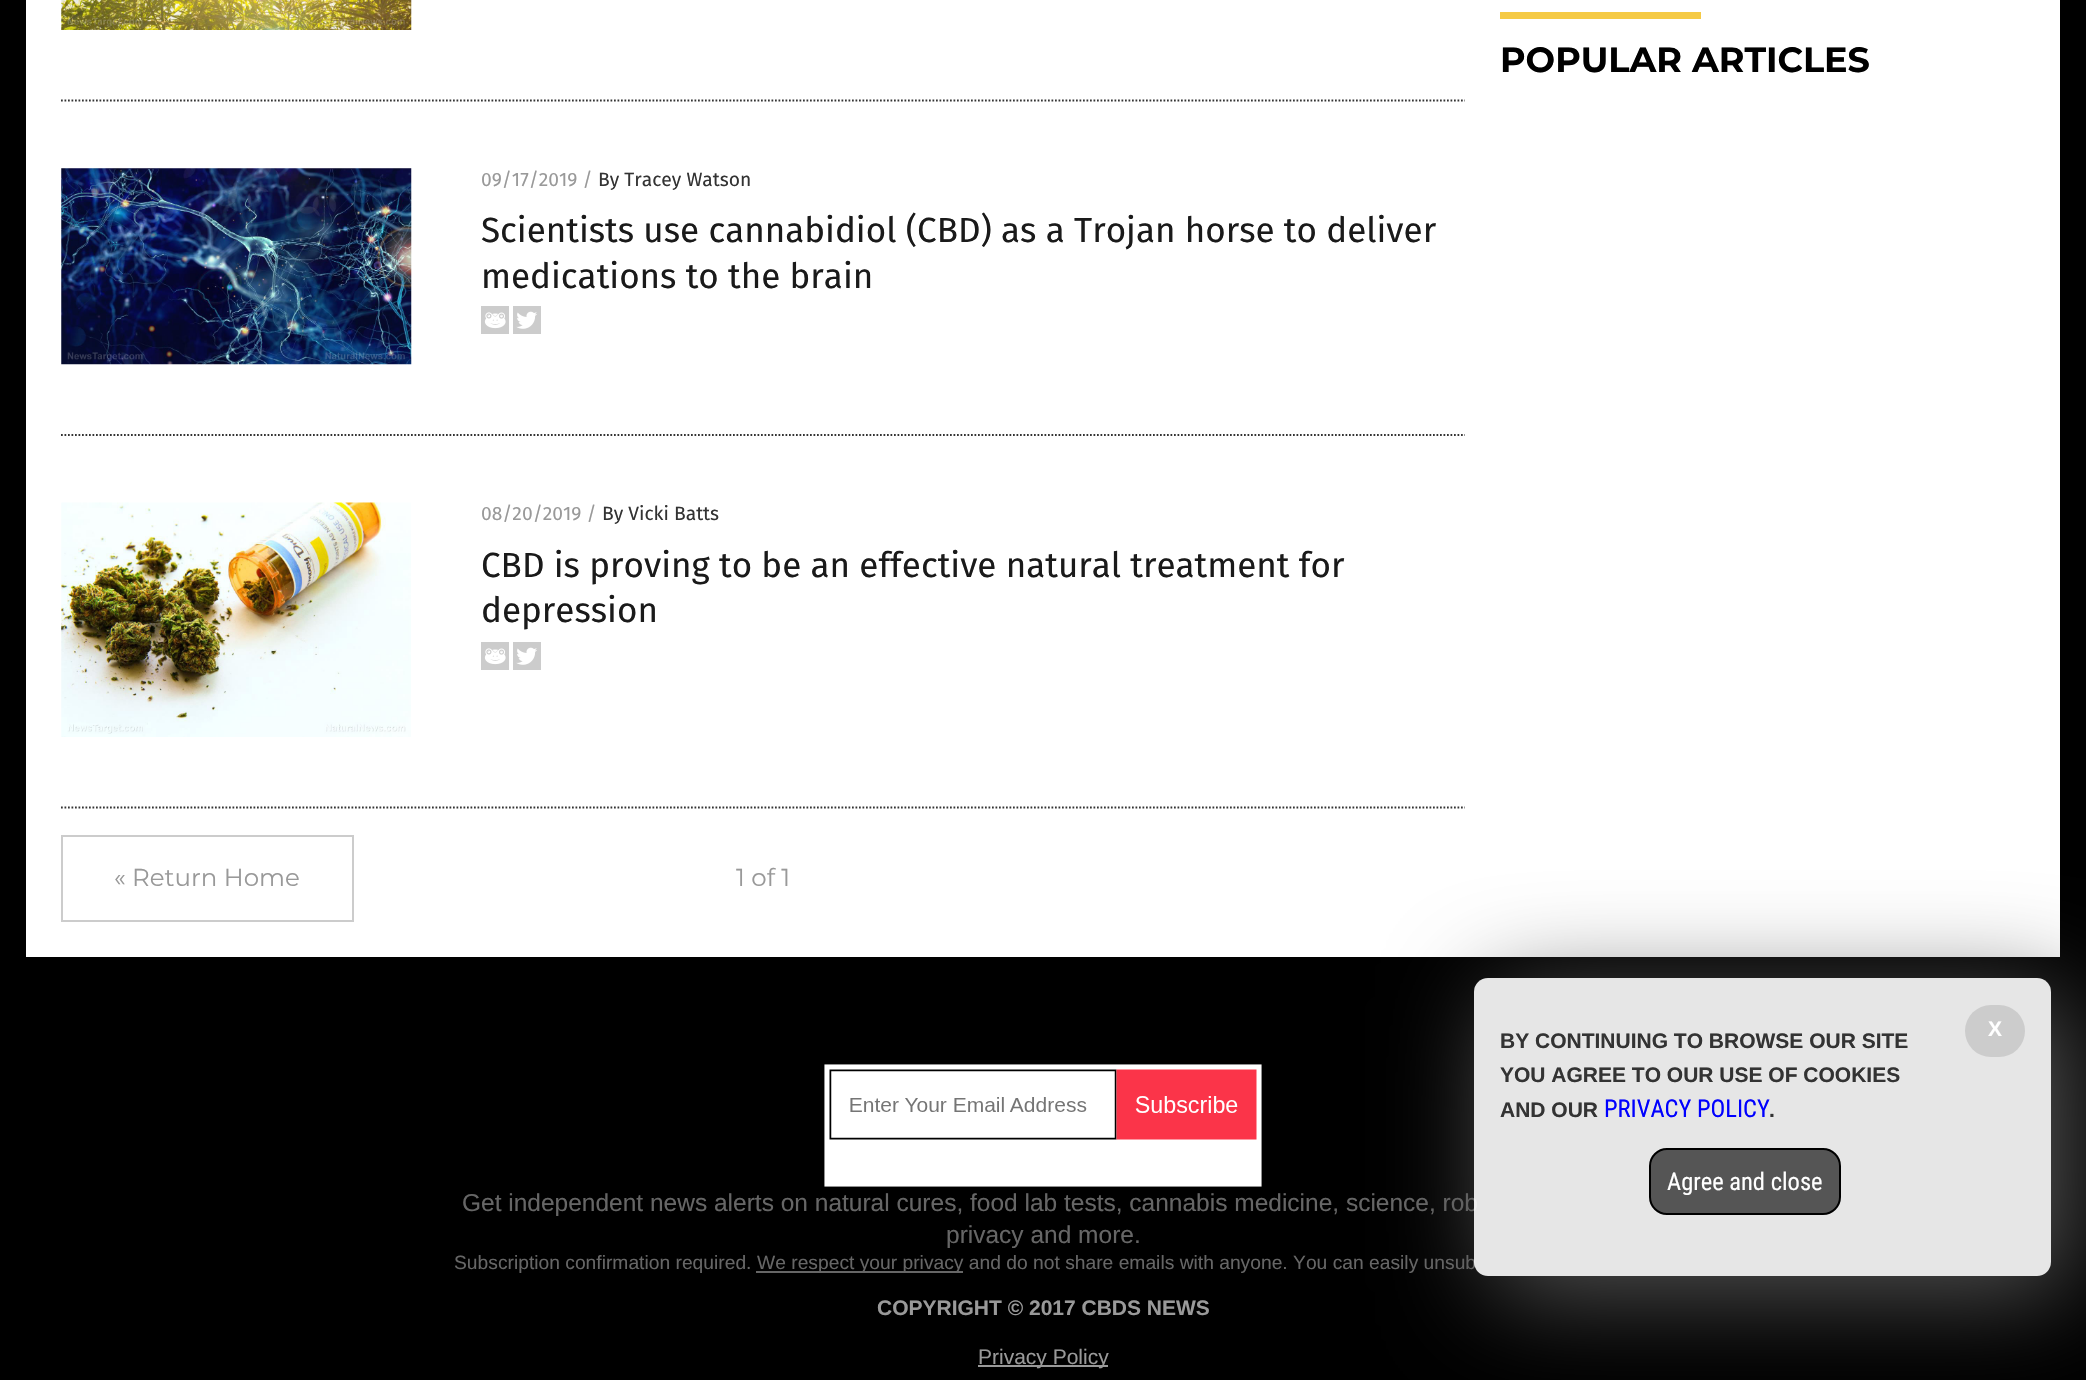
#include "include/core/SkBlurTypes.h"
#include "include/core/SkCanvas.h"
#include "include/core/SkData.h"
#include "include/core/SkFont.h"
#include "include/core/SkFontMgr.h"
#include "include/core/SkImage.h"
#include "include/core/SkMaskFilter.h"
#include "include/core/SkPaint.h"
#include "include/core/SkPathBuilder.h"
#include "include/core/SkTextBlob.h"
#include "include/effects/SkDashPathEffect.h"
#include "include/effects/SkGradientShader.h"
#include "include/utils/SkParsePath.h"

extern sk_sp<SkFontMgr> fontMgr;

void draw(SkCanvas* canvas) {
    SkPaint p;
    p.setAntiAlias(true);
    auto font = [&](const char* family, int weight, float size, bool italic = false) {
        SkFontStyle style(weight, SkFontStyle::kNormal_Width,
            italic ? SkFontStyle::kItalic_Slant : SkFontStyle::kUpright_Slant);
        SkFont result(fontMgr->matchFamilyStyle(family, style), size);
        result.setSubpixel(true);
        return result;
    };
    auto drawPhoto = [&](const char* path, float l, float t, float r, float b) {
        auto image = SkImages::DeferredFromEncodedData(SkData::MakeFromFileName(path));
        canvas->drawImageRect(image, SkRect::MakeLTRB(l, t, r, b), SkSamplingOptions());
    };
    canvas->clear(0xFF000000);
    p.setColor(0xFFFFFFFF);
    canvas->drawRect(SkRect::MakeLTRB(26, 0, 2060, 957), p);
    p.setColor(0xFFF5CA45);
    canvas->drawRect(SkRect::MakeLTRB(1500, 12, 1701, 19), p);
    auto font1 = font("Montserrat", 700, 35);
    p.setColor(0xFF000000);
    canvas->drawString("POPULAR ARTICLES", 1500, 72, font1, p);
    p.setStyle(SkPaint::kStroke_Style);
    p.setStrokeWidth(1.8f);
    p.setColor(0xFF343434);
    p.setPathEffect(SkDashPathEffect::Make({{1.75f, 1.75f}}, 0));
    canvas->drawPath(SkPathBuilder().moveTo(61, 100.5f).lineTo(1465, 100.5f).detach(), p);
    p.setPathEffect(nullptr);
    drawPhoto("media/1.png", 61, 0, 412, 30);
    p.setPathEffect(SkDashPathEffect::Make({{1.75f, 1.75f}}, 0));
    canvas->drawPath(SkPathBuilder().moveTo(61, 435).lineTo(1465, 435).detach(), p);
    p.setPathEffect(nullptr);
    drawPhoto("media/2.png", 61, 168, 412, 365);
    auto font2 = font("Fira Sans", 400, 19.25f);
    p.setStyle(SkPaint::kFill_Style);
    p.setColor(0xFF999999);
    canvas->drawString("09/17/2019 /", 481, 186, font2, p);
    p.setColor(0xFF333333);
    canvas->drawString("By Tracey Watson", 598, 186, font2, p);
    auto font3 = font("Fira Sans", 400, 35);
    p.setColor(0xFF1A1A1A);
    canvas->drawString("Scientists use cannabidiol (CBD) as a Trojan horse to deliver", 481, 242, font3, p);
    canvas->drawString("medications to the brain", 481, 288, font3, p);
    drawPhoto("media/3.png", 481, 306, 509, 334);
    drawPhoto("media/4.png", 513, 306, 541, 334);
    p.setStyle(SkPaint::kStroke_Style);
    p.setColor(0xFF343434);
    p.setPathEffect(SkDashPathEffect::Make({{1.75f, 1.75f}}, 0));
    canvas->drawPath(SkPathBuilder().moveTo(61, 807.5f).lineTo(1465, 807.5f).detach(), p);
    p.setPathEffect(nullptr);
    drawPhoto("media/5.png", 61, 502, 411, 737);
    p.setStyle(SkPaint::kFill_Style);
    p.setColor(0xFF999999);
    canvas->drawString("08/20/2019 /", 481, 520, font2, p);
    p.setColor(0xFF333333);
    canvas->drawString("By Vicki Batts", 602, 520, font2, p);
    p.setColor(0xFF1A1A1A);
    canvas->drawString("CBD is proving to be an effective natural treatment for", 481, 577, font3, p);
    canvas->drawString("depression", 481, 622, font3, p);
    drawPhoto("media/3.png", 481, 642, 509, 670);
    drawPhoto("media/4.png", 513, 642, 541, 670);
    p.setStyle(SkPaint::kStroke_Style);
    p.setStrokeWidth(2);
    p.setColor(0xFFCCCCCC);
    canvas->drawRect(SkRect::MakeLTRB(62, 836, 353, 921), p);
    auto font4 = font("Montserrat", 400, 24.5f);
    p.setStyle(SkPaint::kFill_Style);
    p.setColor(0xFF999999);
    canvas->drawString("« Return Home", 114, 886, font4, p);
    canvas->drawString("1 of 1", 736, 886, font4, p);
    drawPhoto("media/6.png", 824, 1064, 1262, 1187);
    auto font5 = font("Liberation Sans", 400, 24.5f);
    p.setColor(0xFF666666);
    canvas->drawString("Get independent news alerts on natural cures, food lab tests, cannabis medicine, science, rob", 462, 1211, font5, p);
    canvas->drawString("privacy and more.", 946, 1243, font5, p);
    auto font6 = font("Liberation Sans", 400, 19.25f);
    canvas->drawString("Subscription confirmation required.", 454, 1269, font6, p);
    canvas->drawRect(SkRect::MakeLTRB(756, 1271, 963, 1273), p);
    canvas->drawString("We respect your privacy and do not share emails with anyone. You can easily unsub", 757, 1269, font6, p);
    auto font7 = font("Liberation Sans", 700, 21);
    p.setColor(0xFF999999);
    canvas->drawString("COPYRIGHT © 2017 CBDS NEWS", 877, 1315, font7, p);
    canvas->drawRect(SkRect::MakeLTRB(978, 1365, 1108, 1367), p);
    auto font8 = font("Liberation Sans", 400, 21);
    canvas->drawString("Privacy Policy", 978, 1364, font8, p);
    canvas->save();
    canvas->clipPath(SkPathBuilder(SkPathFillType::kEvenOdd).moveTo(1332, 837).lineTo(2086, 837).lineTo(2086, 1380).lineTo(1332, 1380).close().moveTo(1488, 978).lineTo(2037, 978).cubicTo(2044.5f, 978, 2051, 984.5f, 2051, 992).lineTo(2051, 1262).cubicTo(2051, 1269.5f, 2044.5f, 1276, 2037, 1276).lineTo(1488, 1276).cubicTo(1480.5f, 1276, 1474, 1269.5f, 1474, 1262).lineTo(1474, 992).cubicTo(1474, 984.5f, 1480.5f, 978, 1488, 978).close().detach(), true);
    p.setColor(0xFF555555);
    p.setMaskFilter(SkMaskFilter::MakeBlur(kNormal_SkBlurStyle, 52.5f));
    canvas->drawRoundRect(SkRect::MakeLTRB(1491, 996, 2069, 1293), 14, 14, p);
    p.setMaskFilter(nullptr);
    canvas->restore();
    p.setColor(0xE6FFFFFF);
    canvas->drawRoundRect(SkRect::MakeLTRB(1474, 978, 2051, 1276), 14, 14, p);
    p.setColor(0xFFCCCCCC);
    canvas->drawRoundRect(SkRect::MakeLTRB(1965, 1005, 2025, 1057), 26, 26, p);
    p.setColor(0xFFFFFFFF);
    canvas->drawString("X", 1988, 1036, font7, p);
    p.setColor(0xFF333333);
    {
        const struct { const char* s; float x, y; } items[] = {
            {"BY CONTINUING TO BROWSE OUR SITE", 1500, 1048},
            {"YOU AGREE TO OUR USE OF COOKIES", 1500, 1082},
            {"AND OUR", 1500, 1117},
        };
        for (auto [s, x, y] : items) {
            canvas->drawString(s, x, y, font7, p);
        }
    }
    auto font9 = font("Roboto Condensed", 400, 24.5f);
    p.setColor(0xFF0000FF);
    canvas->drawString("PRIVACY POLICY", 1604, 1117, font9, p);
    p.setColor(0xFF333333);
    canvas->drawString(".", 1769, 1117, font7, p);
    p.setColor(0xFF555555);
    canvas->drawRoundRect(SkRect::MakeLTRB(1650, 1149, 1840, 1214), 17, 17, p);
    p.setStyle(SkPaint::kStroke_Style);
    p.setColor(0xFF000000);
    canvas->drawRoundRect(SkRect::MakeLTRB(1650, 1149, 1840, 1214), 17, 17, p);
    p.setStyle(SkPaint::kFill_Style);
    p.setColor(0xFFFFFFFF);
    canvas->drawString("Agree and close", 1667, 1190, font9, p);
}
